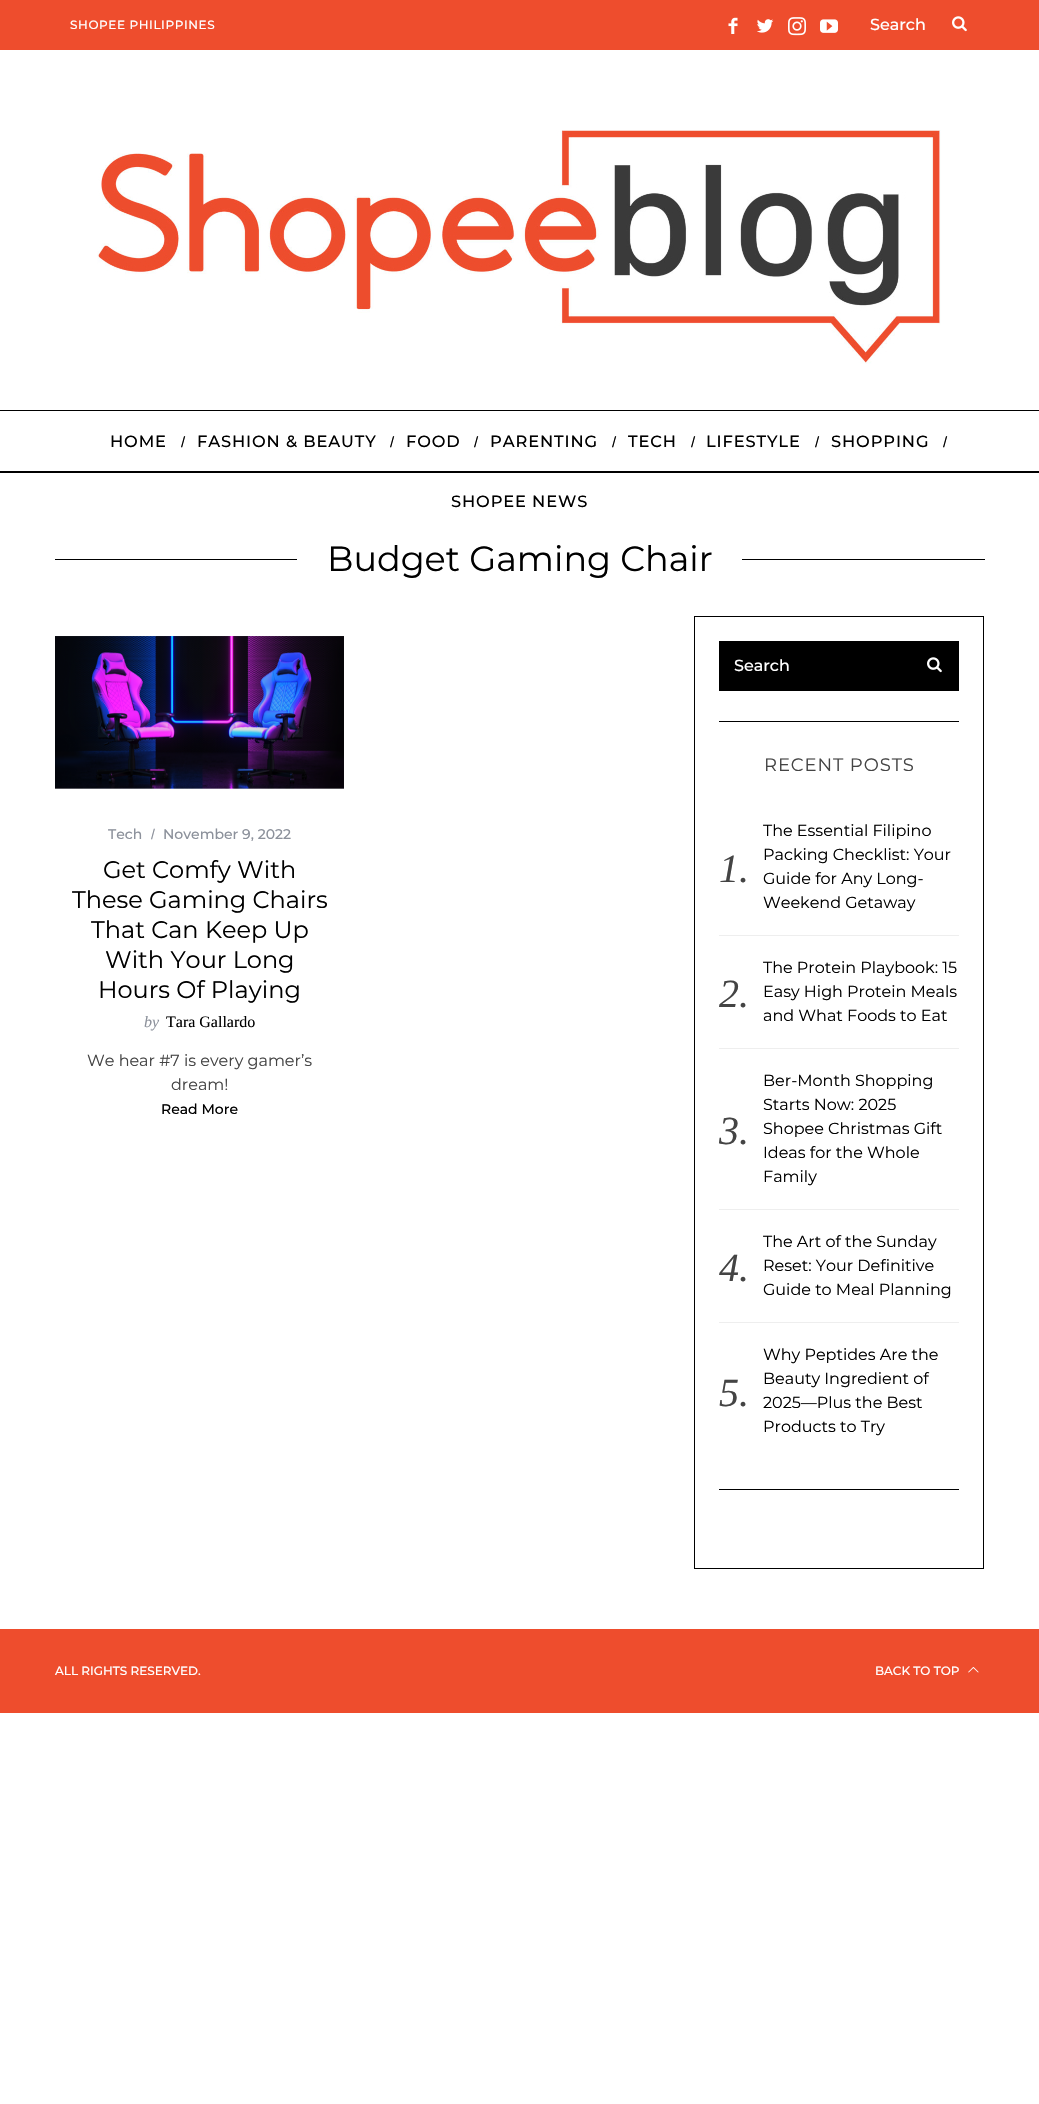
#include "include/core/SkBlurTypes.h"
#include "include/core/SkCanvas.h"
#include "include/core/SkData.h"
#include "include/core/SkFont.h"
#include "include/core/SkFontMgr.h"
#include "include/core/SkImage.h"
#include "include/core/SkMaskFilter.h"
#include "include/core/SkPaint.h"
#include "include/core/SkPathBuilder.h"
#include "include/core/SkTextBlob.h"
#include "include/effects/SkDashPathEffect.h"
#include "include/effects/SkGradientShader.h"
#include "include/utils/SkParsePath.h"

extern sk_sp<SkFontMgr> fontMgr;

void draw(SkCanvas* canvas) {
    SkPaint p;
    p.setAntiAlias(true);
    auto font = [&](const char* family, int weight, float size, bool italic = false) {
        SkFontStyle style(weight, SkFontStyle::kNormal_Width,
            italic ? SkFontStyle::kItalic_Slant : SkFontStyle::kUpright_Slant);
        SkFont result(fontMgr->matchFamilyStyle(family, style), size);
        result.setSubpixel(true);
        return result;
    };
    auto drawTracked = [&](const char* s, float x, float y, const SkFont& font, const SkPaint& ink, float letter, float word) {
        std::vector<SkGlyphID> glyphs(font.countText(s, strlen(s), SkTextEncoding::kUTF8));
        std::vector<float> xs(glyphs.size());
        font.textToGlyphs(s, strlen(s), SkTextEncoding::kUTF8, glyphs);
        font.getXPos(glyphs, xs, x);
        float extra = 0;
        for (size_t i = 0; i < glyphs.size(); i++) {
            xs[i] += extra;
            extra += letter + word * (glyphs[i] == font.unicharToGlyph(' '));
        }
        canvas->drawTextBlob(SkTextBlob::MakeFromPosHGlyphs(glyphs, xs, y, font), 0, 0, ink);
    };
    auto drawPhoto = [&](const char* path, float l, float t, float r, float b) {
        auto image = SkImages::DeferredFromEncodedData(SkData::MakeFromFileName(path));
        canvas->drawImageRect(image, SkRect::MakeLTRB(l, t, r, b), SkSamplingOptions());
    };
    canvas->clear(0xFFFFFFFF);
    p.setColor(0xFFEE4D2D);
    canvas->drawRect(SkRect::MakeLTRB(0, 0, 1039, 50), p);
    auto font1 = font("Montserrat", 500, 12);
    p.setColor(0xFFFFFFFF);
    drawTracked("SHOPEE PHILIPPINES", 70, 29, font1, p, 0.6f, 0);
    drawPhoto("media/1.png", 728, 17, 738, 34);
    drawPhoto("media/2.png", 757, 19, 774, 33);
    drawPhoto("media/3.png", 788, 17, 806, 36);
    drawPhoto("media/4.png", 820, 19, 838, 33);
    auto font2 = font("Montserrat", 500, 16);
    canvas->drawString("Search", 870, 30, font2, p);
    drawPhoto("media/5.png", 952, 16, 967, 32);
    drawPhoto("media/6.png", 97, 130, 941, 364);
    p.setColor(0xFF000000);
    canvas->drawRect(SkRect::MakeLTRB(0, 410, 1039, 411), p);
    canvas->drawRect(SkRect::MakeLTRB(0, 471, 1039, 473), p);
    auto font3 = font("Montserrat", 500, 16.25f);
    drawTracked("HOME", 110, 447, font3, p, 0.9f, 0);
    auto font4 = font("Liberation Sans", 400, 15);
    drawTracked("/", 181, 447, font4, p, 0.9f, 0);
    drawTracked("FASHION & BEAUTY", 197, 447, font3, p, 0.9f, 0);
    drawTracked("/", 390, 447, font4, p, 0.9f, 0);
    drawTracked("FOOD", 406, 447, font3, p, 0.9f, 0);
    drawTracked("/", 474, 447, font4, p, 0.9f, 0);
    drawTracked("PARENTING", 490, 447, font3, p, 0.9f, 0);
    drawTracked("/", 612, 447, font4, p, 0.9f, 0);
    drawTracked("TECH", 628, 447, font3, p, 0.9f, 0);
    drawTracked("/", 691, 447, font4, p, 0.9f, 0);
    drawTracked("LIFESTYLE", 706, 447, font3, p, 0.9f, 0);
    drawTracked("/", 815, 447, font4, p, 0.9f, 0);
    drawTracked("SHOPPING", 831, 447, font3, p, 0.9f, 0);
    drawTracked("/", 943, 447, font4, p, 0.9f, 0);
    drawTracked("SHOPEE NEWS", 451, 507, font3, p, 0.9f, 0);
    canvas->drawRect(SkRect::MakeLTRB(55, 559, 985, 560), p);
    p.setColor(0xFFFFFFFF);
    canvas->drawRect(SkRect::MakeLTRB(297, 559, 742, 560), p);
    auto font5 = font("Montserrat", 400, 35);
    p.setColor(0xFF000000);
    canvas->drawString("Budget Gaming Chair", 327, 571, font5, p);
    drawPhoto("media/7.png", 55, 636, 344, 789);
    auto font6 = font("Montserrat", 500, 14);
    p.setColor(0xFF8C919B);
    canvas->drawString("Tech", 108, 839, font6, p);
    auto font7 = font("Liberation Sans", 400, 14);
    canvas->drawString("/", 151, 839, font7, p);
    canvas->drawString("November 9, 2022", 163, 839, font6, p);
    auto font8 = font("Montserrat", 400, 24);
    p.setColor(0xFF000000);
    {
        const struct { const char* s; float x, y; } items[] = {
            {"Get Comfy With", 103, 878},
            {"These Gaming Chairs", 72, 908},
            {"That Can Keep Up", 91, 938},
            {"With Your Long", 105, 968},
            {"Hours Of Playing", 98, 998},
        };
        for (auto [s, x, y] : items) {
            canvas->drawString(s, x, y, font8, p);
        }
    }
    auto font9 = font("Liberation Serif", 400, 16, true);
    p.setColor(0xFF8C919B);
    canvas->drawString("by", 144, 1027, font9, p);
    auto font10 = font("Liberation Serif", 400, 16);
    p.setColor(0xFF000000);
    canvas->drawString("Tara Gallardo", 166, 1027, font10, p);
    auto font11 = font("Montserrat", 400, 16);
    p.setColor(0xFF444444);
    canvas->drawString("We hear #7 is every gamer’s", 87, 1066, font11, p);
    canvas->drawString("dream!", 171, 1090, font11, p);
    p.setColor(0xFF000000);
    canvas->drawString("Read More", 161, 1114, font6, p);
    p.setStyle(SkPaint::kStroke_Style);
    p.setStrokeWidth(1);
    canvas->drawRect(SkRect::MakeLTRB(694.5f, 616.5f, 983.5f, 1568.5f), p);
    p.setStyle(SkPaint::kFill_Style);
    canvas->drawRect(SkRect::MakeLTRB(719, 721, 959, 722), p);
    canvas->drawRect(SkRect::MakeLTRB(719, 641, 959, 691), p);
    p.setColor(0xFFFFFFFF);
    canvas->drawString("Search", 734, 671, font2, p);
    drawPhoto("media/8.png", 927, 657, 942, 673);
    p.setColor(0xFF000000);
    canvas->drawRect(SkRect::MakeLTRB(719, 1489, 959, 1490), p);
    auto font12 = font("Montserrat", 400, 18);
    p.setColor(0xFF444444);
    drawTracked("RECENT POSTS", 764, 771, font12, p, 0.9f, 0);
    p.setColor(0xFF000000);
    canvas->drawString("The Essential Filipino", 763, 836, font11, p);
    auto font13 = font("Liberation Serif", 400, 40, true);
    p.setColor(0xFF444444);
    canvas->drawString("1.", 719, 882, font13, p);
    p.setColor(0xFF000000);
    {
        const struct { const char* s; float x, y; } items[] = {
            {"Packing Checklist: Your", 763, 860},
            {"Guide for Any Long-", 763, 884},
            {"Weekend Getaway", 763, 908},
        };
        for (auto [s, x, y] : items) {
            canvas->drawString(s, x, y, font11, p);
        }
    }
    p.setColor(0xFFEEEEEE);
    canvas->drawRect(SkRect::MakeLTRB(719, 935, 959, 936), p);
    p.setColor(0xFF000000);
    canvas->drawString("The Protein Playbook: 15", 763, 973, font11, p);
    p.setColor(0xFF444444);
    canvas->drawString("2.", 719, 1007, font13, p);
    p.setColor(0xFF000000);
    canvas->drawString("Easy High Protein Meals", 763, 997, font11, p);
    canvas->drawString("and What Foods to Eat", 763, 1021, font11, p);
    p.setColor(0xFFEEEEEE);
    canvas->drawRect(SkRect::MakeLTRB(719, 1048, 959, 1049), p);
    p.setColor(0xFF000000);
    canvas->drawString("Ber-Month Shopping", 763, 1086, font11, p);
    canvas->drawString("Starts Now: 2025", 763, 1110, font11, p);
    p.setColor(0xFF444444);
    canvas->drawString("3.", 719, 1144, font13, p);
    p.setColor(0xFF000000);
    {
        const struct { const char* s; float x, y; } items[] = {
            {"Shopee Christmas Gift", 763, 1134},
            {"Ideas for the Whole", 763, 1158},
            {"Family", 763, 1182},
        };
        for (auto [s, x, y] : items) {
            canvas->drawString(s, x, y, font11, p);
        }
    }
    p.setColor(0xFFEEEEEE);
    canvas->drawRect(SkRect::MakeLTRB(719, 1209, 959, 1210), p);
    p.setColor(0xFF000000);
    canvas->drawString("The Art of the Sunday", 763, 1247, font11, p);
    p.setColor(0xFF444444);
    canvas->drawString("4.", 719, 1281, font13, p);
    p.setColor(0xFF000000);
    canvas->drawString("Reset: Your Definitive", 763, 1271, font11, p);
    canvas->drawString("Guide to Meal Planning", 763, 1295, font11, p);
    p.setColor(0xFFEEEEEE);
    canvas->drawRect(SkRect::MakeLTRB(719, 1322, 959, 1323), p);
    p.setColor(0xFF000000);
    canvas->drawString("Why Peptides Are the", 763, 1360, font11, p);
    p.setColor(0xFF444444);
    canvas->drawString("5.", 719, 1406, font13, p);
    p.setColor(0xFF000000);
    {
        const struct { const char* s; float x, y; } items[] = {
            {"Beauty Ingredient of", 763, 1384},
            {"2025—Plus the Best", 763, 1408},
            {"Products to Try", 763, 1432},
        };
        for (auto [s, x, y] : items) {
            canvas->drawString(s, x, y, font11, p);
        }
    }
    p.setColor(0xFFEE4D2D);
    canvas->drawRect(SkRect::MakeLTRB(0, 1629, 1039, 1713), p);
    p.setColor(0xFFFFFFFF);
    canvas->drawString("ALL RIGHTS RESERVED.", 55, 1675, font1, p);
    canvas->drawString("BACK TO TOP", 875, 1675, font1, p);
    drawPhoto("media/9.png", 968, 1667, 979, 1673);
}
